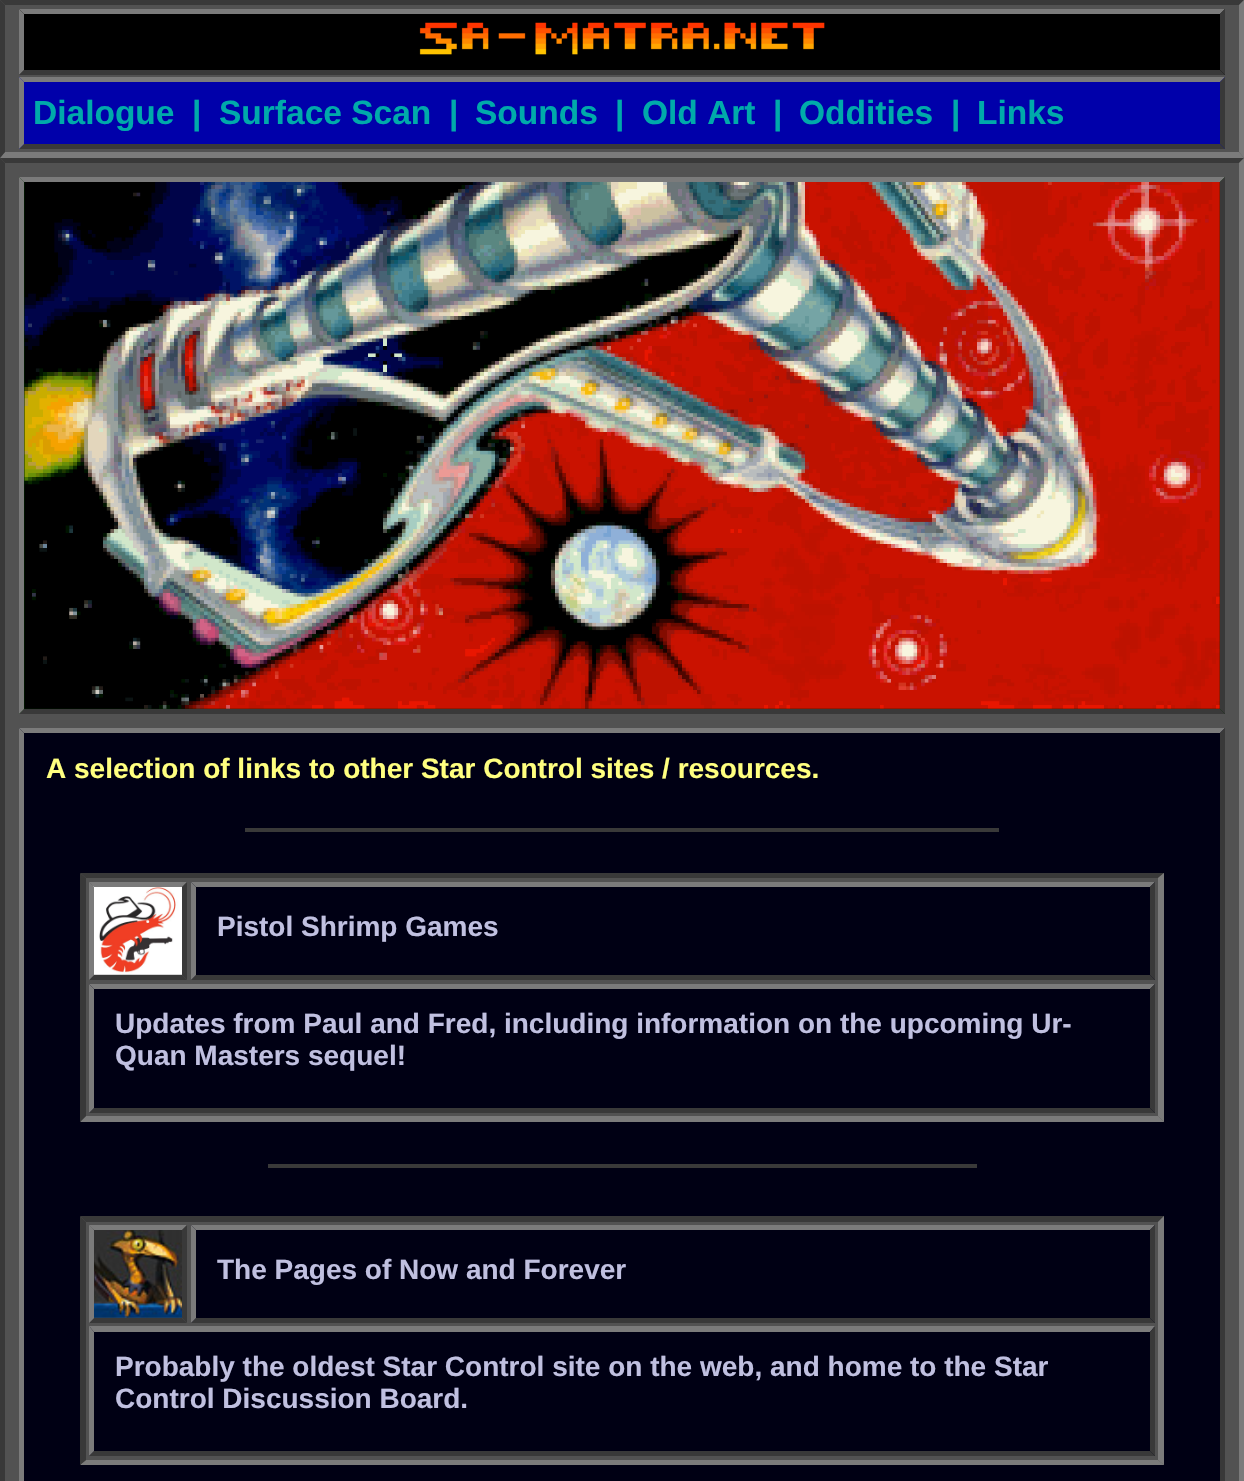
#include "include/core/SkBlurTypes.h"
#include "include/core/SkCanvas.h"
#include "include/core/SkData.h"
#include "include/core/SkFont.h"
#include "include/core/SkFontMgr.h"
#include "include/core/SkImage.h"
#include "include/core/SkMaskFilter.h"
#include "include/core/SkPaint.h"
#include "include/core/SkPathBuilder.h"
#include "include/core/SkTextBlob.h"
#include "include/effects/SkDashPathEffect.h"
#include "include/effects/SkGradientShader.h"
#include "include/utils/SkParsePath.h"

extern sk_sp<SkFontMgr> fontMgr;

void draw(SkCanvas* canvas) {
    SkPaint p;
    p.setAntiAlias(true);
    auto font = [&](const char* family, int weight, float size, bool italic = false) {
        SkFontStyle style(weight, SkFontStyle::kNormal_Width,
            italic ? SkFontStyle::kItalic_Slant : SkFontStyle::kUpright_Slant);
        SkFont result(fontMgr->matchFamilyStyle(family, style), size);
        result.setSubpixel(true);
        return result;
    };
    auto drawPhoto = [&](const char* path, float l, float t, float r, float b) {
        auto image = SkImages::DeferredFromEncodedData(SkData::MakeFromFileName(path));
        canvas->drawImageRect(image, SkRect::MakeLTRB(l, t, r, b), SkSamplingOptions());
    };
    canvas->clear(0xFF525252);
    p.setColor(0xFF393939);
    canvas->drawPath(SkPathBuilder().moveTo(0, 0).lineTo(1244, 0).lineTo(1239, 5).lineTo(5, 5).close().detach(), p);
    p.setColor(0xFF7B7B7B);
    canvas->drawPath(SkPathBuilder().moveTo(1244, 0).lineTo(1244, 158).lineTo(1239, 152).lineTo(1239, 5).close().detach(), p);
    canvas->drawPath(SkPathBuilder().moveTo(1244, 158).lineTo(0, 158).lineTo(5, 152).lineTo(1239, 152).close().detach(), p);
    p.setColor(0xFF393939);
    canvas->drawPath(SkPathBuilder().moveTo(0, 158).lineTo(0, 0).lineTo(5, 5).lineTo(5, 152).close().detach(), p);
    p.setColor(0xFF000000);
    canvas->drawRect(SkRect::MakeLTRB(19, 9, 1225, 75), p);
    p.setColor(0xFF7B7B7B);
    canvas->drawPath(SkPathBuilder().moveTo(19, 9).lineTo(1225, 9).lineTo(1220, 14).lineTo(24, 14).close().detach(), p);
    p.setColor(0xFF393939);
    canvas->drawPath(SkPathBuilder().moveTo(1225, 9).lineTo(1225, 75).lineTo(1220, 70).lineTo(1220, 14).close().detach(), p);
    canvas->drawPath(SkPathBuilder().moveTo(1225, 75).lineTo(19, 75).lineTo(24, 70).lineTo(1220, 70).close().detach(), p);
    p.setColor(0xFF7B7B7B);
    canvas->drawPath(SkPathBuilder().moveTo(19, 75).lineTo(19, 9).lineTo(24, 14).lineTo(24, 70).close().detach(), p);
    drawPhoto("media/1.png", 419, 22, 825, 55);
    p.setColor(0xFF0000AA);
    canvas->drawRect(SkRect::MakeLTRB(19, 77, 1225, 149), p);
    p.setColor(0xFF7B7B7B);
    canvas->drawPath(SkPathBuilder().moveTo(19, 77).lineTo(1225, 77).lineTo(1220, 82).lineTo(24, 82).close().detach(), p);
    p.setColor(0xFF393939);
    canvas->drawPath(SkPathBuilder().moveTo(1225, 77).lineTo(1225, 149).lineTo(1220, 144).lineTo(1220, 82).close().detach(), p);
    canvas->drawPath(SkPathBuilder().moveTo(1225, 149).lineTo(19, 149).lineTo(24, 144).lineTo(1220, 144).close().detach(), p);
    p.setColor(0xFF7B7B7B);
    canvas->drawPath(SkPathBuilder().moveTo(19, 149).lineTo(19, 77).lineTo(24, 82).lineTo(24, 144).close().detach(), p);
    auto font1 = font("Liberation Sans", 700, 33.5f);
    p.setColor(0xFF00AAAA);
    {
        const struct { const char* s; float x, y; } items[] = {
            {"Dialogue", 33, 124},
            {"|", 192, 124},
            {"Surface Scan", 219, 124},
            {"|", 449, 124},
            {"Sounds", 475, 124},
            {"|", 615, 124},
            {"Old Art", 642, 124},
            {"|", 773, 124},
            {"Oddities", 799, 124},
            {"|", 951, 124},
            {"Links", 977, 124},
        };
        for (auto [s, x, y] : items) {
            canvas->drawString(s, x, y, font1, p);
        }
    }
    p.setColor(0xFF393939);
    canvas->drawPath(SkPathBuilder().moveTo(0, 158).lineTo(1244, 158).lineTo(1239, 163).lineTo(5, 163).close().detach(), p);
    p.setColor(0xFF7B7B7B);
    canvas->drawPath(SkPathBuilder().moveTo(1244, 158).lineTo(1244, 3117).lineTo(1239, 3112).lineTo(1239, 163).close().detach(), p);
    p.setColor(0xFF393939);
    canvas->drawPath(SkPathBuilder().moveTo(0, 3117).lineTo(0, 158).lineTo(5, 163).lineTo(5, 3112).close().detach(), p);
    p.setColor(0xFF002800);
    canvas->drawRect(SkRect::MakeLTRB(19, 177, 1225, 714), p);
    p.setColor(0xFF7B7B7B);
    canvas->drawPath(SkPathBuilder().moveTo(19, 177).lineTo(1225, 177).lineTo(1220, 182).lineTo(24, 182).close().detach(), p);
    p.setColor(0xFF393939);
    canvas->drawPath(SkPathBuilder().moveTo(1225, 177).lineTo(1225, 714).lineTo(1220, 709).lineTo(1220, 182).close().detach(), p);
    canvas->drawPath(SkPathBuilder().moveTo(1225, 714).lineTo(19, 714).lineTo(24, 709).lineTo(1220, 709).close().detach(), p);
    p.setColor(0xFF7B7B7B);
    canvas->drawPath(SkPathBuilder().moveTo(19, 714).lineTo(19, 177).lineTo(24, 182).lineTo(24, 709).close().detach(), p);
    drawPhoto("media/2.png", 24, 182, 1220, 709);
    p.setColor(0xFF000014);
    canvas->drawRect(SkRect::MakeLTRB(19, 728, 1225, 1481), p);
    p.setColor(0xFF7B7B7B);
    canvas->drawPath(SkPathBuilder().moveTo(19, 728).lineTo(1225, 728).lineTo(1220, 733).lineTo(24, 733).close().detach(), p);
    p.setColor(0xFF393939);
    canvas->drawPath(SkPathBuilder().moveTo(1225, 728).lineTo(1225, 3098).lineTo(1220, 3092).lineTo(1220, 733).close().detach(), p);
    p.setColor(0xFF7B7B7B);
    canvas->drawPath(SkPathBuilder().moveTo(19, 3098).lineTo(19, 728).lineTo(24, 733).lineTo(24, 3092).close().detach(), p);
    auto font2 = font("Liberation Sans", 700, 28);
    p.setColor(0xFFFFFF7F);
    canvas->drawString("A selection of links to other Star Control sites / resources.", 46, 778, font2, p);
    p.setColor(0xFF393939);
    canvas->drawRect(SkRect::MakeLTRB(245, 828, 999, 832), p);
    p.setColor(0xFF525252);
    canvas->drawRect(SkRect::MakeLTRB(81, 873, 1164, 1122), p);
    p.setColor(0xFF393939);
    canvas->drawPath(SkPathBuilder().moveTo(80, 873).lineTo(1164, 873).lineTo(1158, 878).lineTo(86, 878).close().detach(), p);
    p.setColor(0xFF7B7B7B);
    canvas->drawPath(SkPathBuilder().moveTo(1164, 873).lineTo(1164, 1122).lineTo(1158, 1116).lineTo(1158, 878).close().detach(), p);
    canvas->drawPath(SkPathBuilder().moveTo(1164, 1122).lineTo(80, 1122).lineTo(86, 1116).lineTo(1158, 1116).close().detach(), p);
    p.setColor(0xFF393939);
    canvas->drawPath(SkPathBuilder().moveTo(80, 1122).lineTo(80, 873).lineTo(86, 878).lineTo(86, 1116).close().detach(), p);
    drawPhoto("media/3.png", 92, 885, 182, 975);
    p.setColor(0xFF7B7B7B);
    canvas->drawPath(SkPathBuilder().moveTo(89, 882).lineTo(187, 882).lineTo(182, 887).lineTo(94, 887).close().detach(), p);
    p.setColor(0xFF393939);
    canvas->drawPath(SkPathBuilder().moveTo(187, 882).lineTo(187, 980).lineTo(182, 975).lineTo(182, 887).close().detach(), p);
    canvas->drawPath(SkPathBuilder().moveTo(187, 980).lineTo(89, 980).lineTo(94, 975).lineTo(182, 975).close().detach(), p);
    p.setColor(0xFF7B7B7B);
    canvas->drawPath(SkPathBuilder().moveTo(89, 980).lineTo(89, 882).lineTo(94, 887).lineTo(94, 975).close().detach(), p);
    p.setColor(0xFF000014);
    canvas->drawRect(SkRect::MakeLTRB(191, 882, 1155, 980), p);
    p.setColor(0xFF7B7B7B);
    canvas->drawPath(SkPathBuilder().moveTo(191, 882).lineTo(1155, 882).lineTo(1150, 887).lineTo(196, 887).close().detach(), p);
    p.setColor(0xFF393939);
    canvas->drawPath(SkPathBuilder().moveTo(1155, 882).lineTo(1155, 980).lineTo(1150, 975).lineTo(1150, 887).close().detach(), p);
    canvas->drawPath(SkPathBuilder().moveTo(1155, 980).lineTo(191, 980).lineTo(196, 975).lineTo(1150, 975).close().detach(), p);
    p.setColor(0xFF7B7B7B);
    canvas->drawPath(SkPathBuilder().moveTo(191, 980).lineTo(191, 882).lineTo(196, 887).lineTo(196, 975).close().detach(), p);
    p.setColor(0xFFC0C0E0);
    canvas->drawString("Pistol Shrimp Games", 217, 936, font2, p);
    p.setColor(0xFF000014);
    canvas->drawRect(SkRect::MakeLTRB(89, 984, 1155, 1113), p);
    p.setColor(0xFF7B7B7B);
    canvas->drawPath(SkPathBuilder().moveTo(89, 984).lineTo(1155, 984).lineTo(1150, 989).lineTo(94, 989).close().detach(), p);
    p.setColor(0xFF393939);
    canvas->drawPath(SkPathBuilder().moveTo(1155, 984).lineTo(1155, 1113).lineTo(1150, 1108).lineTo(1150, 989).close().detach(), p);
    canvas->drawPath(SkPathBuilder().moveTo(1155, 1113).lineTo(89, 1113).lineTo(94, 1108).lineTo(1150, 1108).close().detach(), p);
    p.setColor(0xFF7B7B7B);
    canvas->drawPath(SkPathBuilder().moveTo(89, 1113).lineTo(89, 984).lineTo(94, 989).lineTo(94, 1108).close().detach(), p);
    p.setColor(0xFFC0C0E0);
    canvas->drawString("Updates from Paul and Fred, including information on the upcoming Ur-", 115, 1033, font2, p);
    canvas->drawString("Quan Masters sequel!", 115, 1065, font2, p);
    p.setColor(0xFF393939);
    canvas->drawRect(SkRect::MakeLTRB(268, 1164, 977, 1168), p);
    p.setColor(0xFF525252);
    canvas->drawRect(SkRect::MakeLTRB(81, 1216, 1164, 1465), p);
    p.setColor(0xFF393939);
    canvas->drawPath(SkPathBuilder().moveTo(80, 1216).lineTo(1164, 1216).lineTo(1158, 1222).lineTo(86, 1222).close().detach(), p);
    p.setColor(0xFF7B7B7B);
    canvas->drawPath(SkPathBuilder().moveTo(1164, 1216).lineTo(1164, 1465).lineTo(1158, 1460).lineTo(1158, 1222).close().detach(), p);
    canvas->drawPath(SkPathBuilder().moveTo(1164, 1465).lineTo(80, 1465).lineTo(86, 1460).lineTo(1158, 1460).close().detach(), p);
    p.setColor(0xFF393939);
    canvas->drawPath(SkPathBuilder().moveTo(80, 1465).lineTo(80, 1216).lineTo(86, 1222).lineTo(86, 1460).close().detach(), p);
    drawPhoto("media/4.png", 92, 1228, 182, 1318);
    p.setColor(0xFF7B7B7B);
    canvas->drawPath(SkPathBuilder().moveTo(89, 1225).lineTo(187, 1225).lineTo(182, 1230).lineTo(94, 1230).close().detach(), p);
    p.setColor(0xFF393939);
    canvas->drawPath(SkPathBuilder().moveTo(187, 1225).lineTo(187, 1323).lineTo(182, 1318).lineTo(182, 1230).close().detach(), p);
    canvas->drawPath(SkPathBuilder().moveTo(187, 1323).lineTo(89, 1323).lineTo(94, 1318).lineTo(182, 1318).close().detach(), p);
    p.setColor(0xFF7B7B7B);
    canvas->drawPath(SkPathBuilder().moveTo(89, 1323).lineTo(89, 1225).lineTo(94, 1230).lineTo(94, 1318).close().detach(), p);
    p.setColor(0xFF000014);
    canvas->drawRect(SkRect::MakeLTRB(191, 1225, 1155, 1323), p);
    p.setColor(0xFF7B7B7B);
    canvas->drawPath(SkPathBuilder().moveTo(191, 1225).lineTo(1155, 1225).lineTo(1150, 1230).lineTo(196, 1230).close().detach(), p);
    p.setColor(0xFF393939);
    canvas->drawPath(SkPathBuilder().moveTo(1155, 1225).lineTo(1155, 1323).lineTo(1150, 1318).lineTo(1150, 1230).close().detach(), p);
    canvas->drawPath(SkPathBuilder().moveTo(1155, 1323).lineTo(191, 1323).lineTo(196, 1318).lineTo(1150, 1318).close().detach(), p);
    p.setColor(0xFF7B7B7B);
    canvas->drawPath(SkPathBuilder().moveTo(191, 1323).lineTo(191, 1225).lineTo(196, 1230).lineTo(196, 1318).close().detach(), p);
    p.setColor(0xFFC0C0E0);
    canvas->drawString("The Pages of Now and Forever", 217, 1279, font2, p);
    p.setColor(0xFF000014);
    canvas->drawRect(SkRect::MakeLTRB(89, 1327, 1155, 1456), p);
    p.setColor(0xFF7B7B7B);
    canvas->drawPath(SkPathBuilder().moveTo(89, 1326).lineTo(1155, 1326).lineTo(1150, 1332).lineTo(94, 1332).close().detach(), p);
    p.setColor(0xFF393939);
    canvas->drawPath(SkPathBuilder().moveTo(1155, 1326).lineTo(1155, 1456).lineTo(1150, 1451).lineTo(1150, 1332).close().detach(), p);
    canvas->drawPath(SkPathBuilder().moveTo(1155, 1456).lineTo(89, 1456).lineTo(94, 1451).lineTo(1150, 1451).close().detach(), p);
    p.setColor(0xFF7B7B7B);
    canvas->drawPath(SkPathBuilder().moveTo(89, 1456).lineTo(89, 1326).lineTo(94, 1332).lineTo(94, 1451).close().detach(), p);
    p.setColor(0xFFC0C0E0);
    canvas->drawString("Probably the oldest Star Control site on the web, and home to the Star", 115, 1376, font2, p);
    canvas->drawString("Control Discussion Board.", 115, 1408, font2, p);
}
